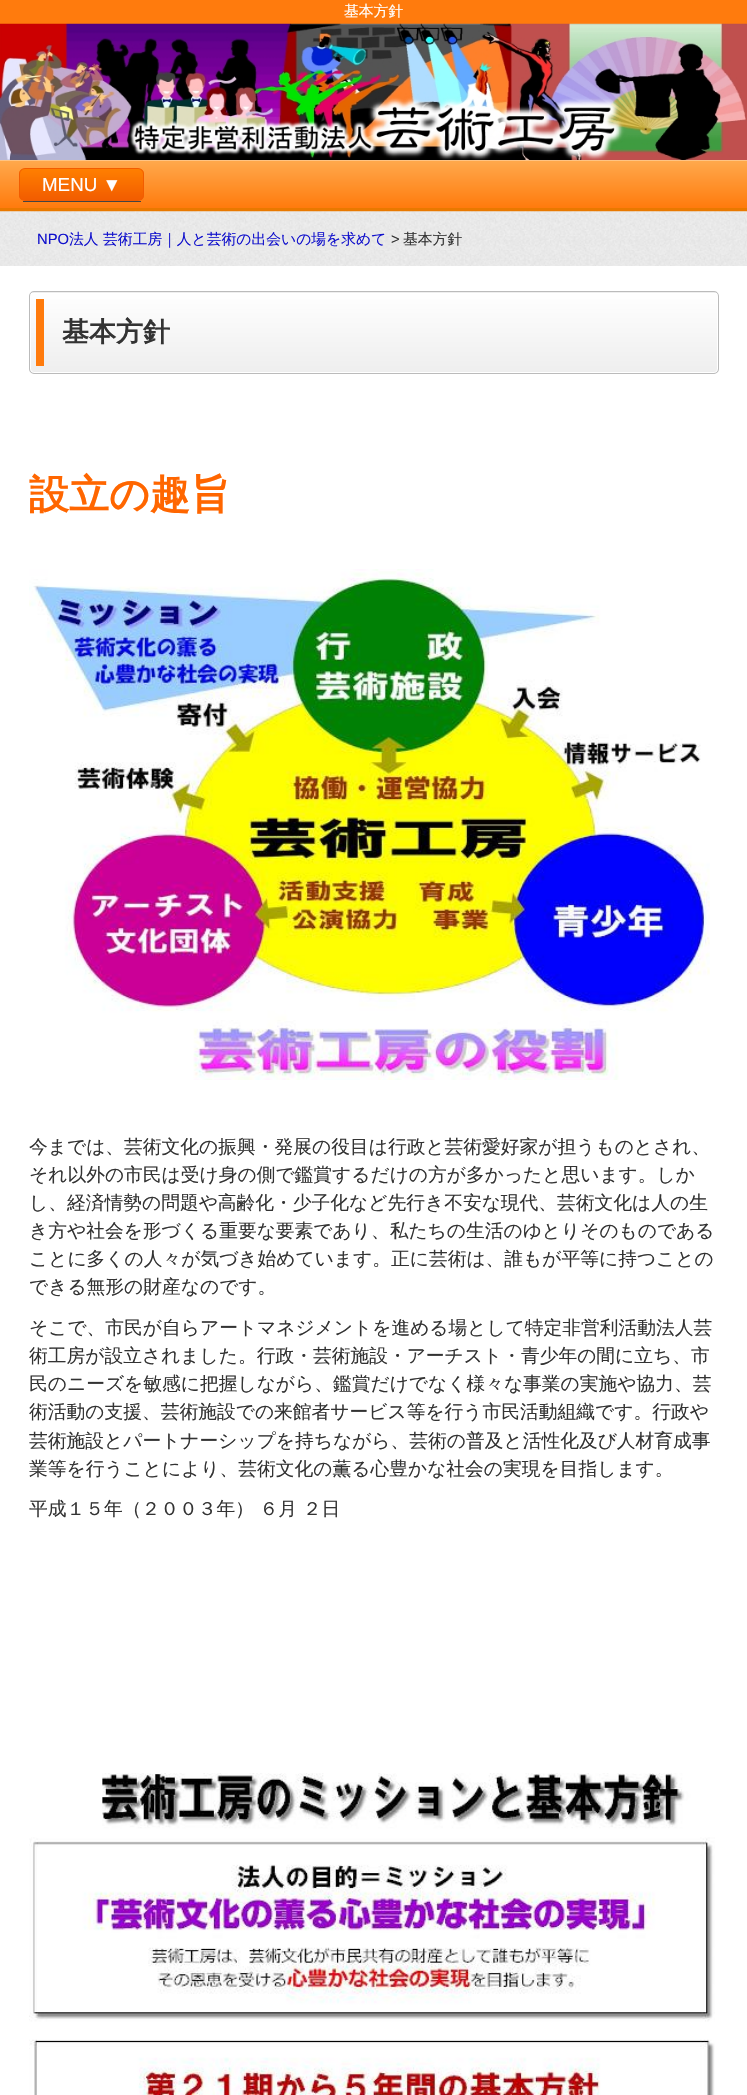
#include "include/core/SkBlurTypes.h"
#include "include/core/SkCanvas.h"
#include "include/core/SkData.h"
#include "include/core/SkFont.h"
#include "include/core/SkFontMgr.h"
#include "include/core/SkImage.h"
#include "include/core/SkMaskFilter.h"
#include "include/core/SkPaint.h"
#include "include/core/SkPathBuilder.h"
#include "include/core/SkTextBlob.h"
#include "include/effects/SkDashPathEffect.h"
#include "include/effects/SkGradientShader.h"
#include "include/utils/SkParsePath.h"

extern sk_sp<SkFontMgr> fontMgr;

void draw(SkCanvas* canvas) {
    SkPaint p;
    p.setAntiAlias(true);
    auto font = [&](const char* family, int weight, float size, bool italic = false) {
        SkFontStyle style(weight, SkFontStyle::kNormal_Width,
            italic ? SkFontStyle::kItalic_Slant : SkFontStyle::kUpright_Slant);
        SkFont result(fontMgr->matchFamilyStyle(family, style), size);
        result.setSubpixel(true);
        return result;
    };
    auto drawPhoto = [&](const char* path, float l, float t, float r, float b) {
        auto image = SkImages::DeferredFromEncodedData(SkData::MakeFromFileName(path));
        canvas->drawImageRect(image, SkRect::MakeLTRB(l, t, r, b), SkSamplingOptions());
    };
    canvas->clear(0xFFFFFFFF);
    p.setColor(0xFFFF7B0D);
    canvas->drawRect(SkRect::MakeLTRB(0, 0, 747, 24), p);
    auto font1 = font("WenQuanYi Zen Hei", 500, 14.8f);
    p.setColor(0xFFFFFFFF);
    canvas->drawString("基本方針", 344, 16, font1, p);
    drawPhoto("media/1.png", 0, 23, 747, 160);
    {
        const SkColor colors[] = {0xFFFFA84C, 0xFFFF7B0D};
        const float stops[] = {0, 1};
        const SkPoint ends[] = {{374, 161}, {374, 208}};
        p.setShader(SkGradientShader::MakeLinear(ends, colors, stops, 2, SkTileMode::kClamp));
        p.setAlpha(255);
    }
    canvas->drawRect(SkRect::MakeLTRB(0, 161, 747, 208), p);
    p.setShader(nullptr);
    {
        const struct { float l, t, r, b; SkColor color; } items[] = {
            {0, 160, 747, 161, 0xFFFFC484},
            {0, 208, 747, 212, 0xFFE97900},
            {23, 201, 141, 202, 0xFF444444},
        };
        for (auto [l, t, r, b, color] : items) {
            p.setColor(color);
            canvas->drawRect(SkRect::MakeLTRB(l, t, r, b), p);
        }
    }
    canvas->save();
    canvas->clipPath(SkPathBuilder().moveTo(25, 168).lineTo(138, 168).cubicTo(141.5f, 168, 144, 170.5f, 144, 174).lineTo(144, 195).cubicTo(144, 198.5f, 141.5f, 201, 138, 201).lineTo(25, 201).cubicTo(21.5f, 201, 19, 198.5f, 19, 195).lineTo(19, 174).cubicTo(19, 170.5f, 21.5f, 168, 25, 168).close().detach(), true);
    {
        const SkColor colors[] = {0xFFFF7F00, 0xFFF25C00};
        const float stops[] = {0, 1};
        const SkPoint ends[] = {{81, 169}, {81, 200}};
        p.setShader(SkGradientShader::MakeLinear(ends, colors, stops, 2, SkTileMode::kClamp));
        p.setAlpha(255);
    }
    canvas->drawRect(SkRect::MakeLTRB(19, 169, 144, 200), p);
    canvas->restore();
    p.setStyle(SkPaint::kStroke_Style);
    p.setStrokeWidth(1);
    p.setShader(nullptr);
    p.setColor(0xFFF25C00);
    canvas->drawRoundRect(SkRect::MakeLTRB(19.5f, 168.5f, 143.5f, 200.5f), 5.5f, 5.5f, p);
    auto font2 = font("Liberation Sans", 400, 18.75f);
    p.setStyle(SkPaint::kFill_Style);
    p.setColor(0xFFFFFFFF);
    canvas->drawString("MENU ▼", 42, 191, font2, p);
    drawPhoto("media/2.png", 0, 211, 747, 266);
    auto font3 = font("Liberation Sans", 400, 14.8f);
    p.setColor(0xFF1111CC);
    canvas->drawString("NPO", 37, 244, font3, p);
    canvas->drawString("法人 芸術工房｜人と芸術の出会いの場を求めて", 69, 244, font1, p);
    p.setColor(0xFF333333);
    canvas->drawString(">", 391, 244, font3, p);
    canvas->drawString("基本方針", 403, 244, font1, p);
    canvas->save();
    canvas->clipPath(SkPathBuilder().moveTo(34, 291).lineTo(714, 291).cubicTo(717, 291, 719, 293, 719, 296).lineTo(719, 369).cubicTo(719, 372, 717, 374, 714, 374).lineTo(34, 374).cubicTo(31, 374, 29, 372, 29, 369).lineTo(29, 296).cubicTo(29, 293, 31, 291, 34, 291).close().detach(), true);
    {
        const SkColor colors[] = {0xFFFFFFFF, 0xFFEEEEEE};
        const float stops[] = {0, 1};
        const SkPoint ends[] = {{374, 212}, {374, 293}};
        p.setShader(SkGradientShader::MakeLinear(ends, colors, stops, 2, SkTileMode::kClamp));
        p.setAlpha(255);
    }
    canvas->drawRect(SkRect::MakeLTRB(29, 291, 719, 293), p);
    {
        const SkColor colors[] = {0xFFFFFFFF, 0xFFEEEEEE};
        const float stops[] = {0, 1};
        const SkPoint ends[] = {{374, 292}, {374, 373}};
        p.setShader(SkGradientShader::MakeLinear(ends, colors, stops, 2, SkTileMode::kClamp));
        p.setAlpha(255);
    }
    canvas->drawRect(SkRect::MakeLTRB(29, 293, 719, 373), p);
    canvas->restore();
    p.setStyle(SkPaint::kStroke_Style);
    p.setShader(nullptr);
    p.setColor(0xFFFFFFFF);
    canvas->drawRoundRect(SkRect::MakeLTRB(30.5f, 293.5f, 717.5f, 372.5f), 3.5f, 3.5f, p);
    p.setColor(0xFFBBBBBB);
    canvas->drawRoundRect(SkRect::MakeLTRB(29.5f, 291.5f, 718.5f, 373.5f), 4.5f, 4.5f, p);
    p.setStyle(SkPaint::kFill_Style);
    p.setColor(0xFFFF7B0D);
    canvas->drawRect(SkRect::MakeLTRB(36, 299, 44, 366), p);
    auto font4 = font("WenQuanYi Zen Hei", 700, 27);
    p.setColor(0xFF333333);
    canvas->drawString("基本方針", 62, 341, font4, p);
    auto font5 = font("WenQuanYi Zen Hei", 700, 40);
    p.setColor(0xFFFF6600);
    canvas->drawString("設立の趣旨", 29, 508, font5, p);
    drawPhoto("media/3.png", 29, 569, 710, 1080);
    auto font6 = font("WenQuanYi Zen Hei", 500, 18.75f);
    p.setColor(0xFF333333);
    {
        const struct { const char* s; float x, y; } items[] = {
            {"今までは、芸術文化の振興・発展の役目は行政と芸術愛好家が担うものとされ、", 29, 1153},
            {"それ以外の市民は受け身の側で鑑賞するだけの方が多かったと思います。しか", 29, 1181},
            {"し、経済情勢の問題や高齢化・少子化など先行き不安な現代、芸術文化は人の生", 29, 1209},
            {"き方や社会を形づくる重要な要素であり、私たちの生活のゆとりそのものである", 29, 1237},
            {"ことに多くの人々が気づき始めています。正に芸術は、誰もが平等に持つことの", 29, 1265},
            {"できる無形の財産なのです。", 29, 1293},
            {"そこで、市民が自らアートマネジメントを進める場として特定非営利活動法人芸", 29, 1334},
            {"術工房が設立されました。行政・芸術施設・アーチスト・青少年の間に立ち、市", 29, 1362},
            {"民のニーズを敏感に把握しながら、鑑賞だけでなく様々な事業の実施や協力、芸", 29, 1390},
            {"術活動の支援、芸術施設での来館者サービス等を行う市民活動組織です。行政や", 29, 1418},
            {"芸術施設とパートナーシップを持ちながら、芸術の普及と活性化及び人材育成事", 29, 1447},
            {"業等を行うことにより、芸術文化の薫る心豊かな社会の実現を目指します。", 29, 1475},
            {"平成１５年（２００３年） ６月 ２日", 29, 1515},
        };
        for (auto [s, x, y] : items) {
            canvas->drawString(s, x, y, font6, p);
        }
    }
    drawPhoto("media/4.png", 29, 1773, 715, 2095);
}
